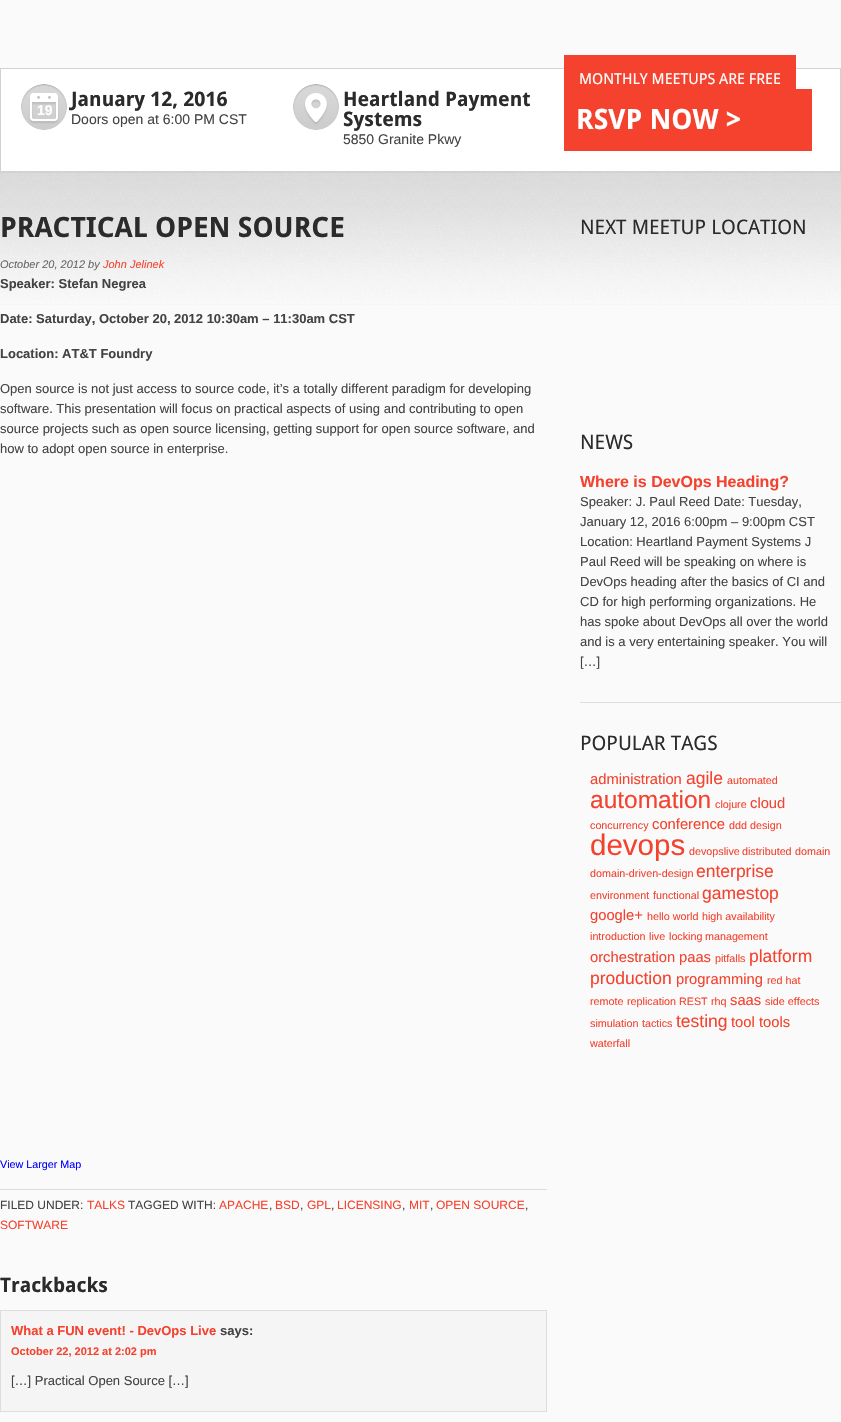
#include "include/core/SkBlurTypes.h"
#include "include/core/SkCanvas.h"
#include "include/core/SkData.h"
#include "include/core/SkFont.h"
#include "include/core/SkFontMgr.h"
#include "include/core/SkImage.h"
#include "include/core/SkMaskFilter.h"
#include "include/core/SkPaint.h"
#include "include/core/SkPathBuilder.h"
#include "include/core/SkTextBlob.h"
#include "include/effects/SkDashPathEffect.h"
#include "include/effects/SkGradientShader.h"
#include "include/utils/SkParsePath.h"

extern sk_sp<SkFontMgr> fontMgr;

void draw(SkCanvas* canvas) {
    SkPaint p;
    p.setAntiAlias(true);
    auto font = [&](const char* family, int weight, float size, bool italic = false) {
        SkFontStyle style(weight, SkFontStyle::kNormal_Width,
            italic ? SkFontStyle::kItalic_Slant : SkFontStyle::kUpright_Slant);
        SkFont result(fontMgr->matchFamilyStyle(family, style), size);
        result.setSubpixel(true);
        return result;
    };
    auto drawPhoto = [&](const char* path, float l, float t, float r, float b) {
        auto image = SkImages::DeferredFromEncodedData(SkData::MakeFromFileName(path));
        canvas->drawImageRect(image, SkRect::MakeLTRB(l, t, r, b), SkSamplingOptions());
    };
    canvas->clear(0xFFFAFAFA);
    {
        const struct { float l, t, r, b; SkColor color; } items[] = {
            {1, 69, 840, 171, 0xFFFFFFFF},
            {0, 68, 841, 69, 0xFFD2D2D2},
            {840, 68, 841, 171, 0xFFD2D2D2},
            {0, 68, 1, 171, 0xFFD2D2D2},
        };
        for (auto [l, t, r, b, color] : items) {
            p.setColor(color);
            canvas->drawRect(SkRect::MakeLTRB(l, t, r, b), p);
        }
    }
    drawPhoto("media/1.png", 21, 84, 67, 130);
    auto font1 = font("Liberation Sans", 700, 14);
    p.setColor(0xFFFFFFFF);
    canvas->drawString("19", 37, 115, font1, p);
    auto font2 = font("Droid Sans", 700, 20);
    p.setColor(0xFF2B2B2B);
    canvas->drawString("January 12, 2016", 71, 106, font2, p);
    auto font3 = font("Liberation Sans", 400, 14);
    p.setColor(0xFF434343);
    canvas->drawString("Doors open at 6:00 PM CST", 71, 124, font3, p);
    drawPhoto("media/2.png", 293, 84, 339, 130);
    p.setColor(0xFF2B2B2B);
    canvas->drawString("Heartland Payment", 343, 106, font2, p);
    canvas->drawString("Systems", 343, 126, font2, p);
    p.setColor(0xFF434343);
    canvas->drawString("5850 Granite Pkwy", 343, 144, font3, p);
    p.setColor(0xFFF4422E);
    canvas->drawRect(SkRect::MakeLTRB(564, 55, 796, 89), p);
    auto font4 = font("Droid Sans", 400, 15);
    p.setColor(0xFFFFFFFF);
    canvas->drawString("MONTHLY MEETUPS ARE FREE", 579, 84, font4, p);
    p.setColor(0xFFF4422E);
    canvas->drawRect(SkRect::MakeLTRB(564, 89, 812, 151), p);
    auto font5 = font("Droid Sans", 700, 28);
    p.setColor(0xFFFFFFFF);
    canvas->drawString("RSVP NOW >", 576, 129, font5, p);
    drawPhoto("media/3.png", 0, 172, 841, 305);
    p.setColor(0xFFD2D2D2);
    canvas->drawRect(SkRect::MakeLTRB(0, 171, 841, 172), p);
    p.setColor(0xFF2B2B2B);
    canvas->drawString("PRACTICAL OPEN SOURCE", 0, 237, font5, p);
    auto font6 = font("Liberation Sans", 400, 11, true);
    p.setColor(0xFF686868);
    canvas->drawString("October 20, 2012 by", 0, 268, font6, p);
    p.setColor(0xFFF4422E);
    canvas->drawString("John Jelinek", 103, 268, font6, p);
    auto font7 = font("Liberation Sans", 700, 13);
    p.setColor(0xFF434343);
    {
        const struct { const char* s; float x, y; } items[] = {
            {"Speaker: Stefan Negrea", 0, 288},
            {"Date: Saturday, October 20, 2012 10:30am – 11:30am CST", 0, 323},
            {"Location: AT&T Foundry", 0, 358},
        };
        for (auto [s, x, y] : items) {
            canvas->drawString(s, x, y, font7, p);
        }
    }
    auto font8 = font("Liberation Sans", 400, 13);
    {
        const struct { const char* s; float x, y; } items[] = {
            {"Open source is not just access to source code, it’s a totally different paradigm for developing", 0, 393},
            {"software. This presentation will focus on practical aspects of using and contributing to open", 0, 413},
            {"source projects such as open source licensing, getting support for open source software, and", 0, 433},
            {"how to adopt open source in enterprise.", 0, 453},
        };
        for (auto [s, x, y] : items) {
            canvas->drawString(s, x, y, font8, p);
        }
    }
    auto font9 = font("Liberation Sans", 400, 10.75f);
    p.setColor(0xFF0000FF);
    canvas->drawString("View Larger Map", 0, 1168, font9, p);
    p.setColor(0xFFDDDDDD);
    canvas->drawRect(SkRect::MakeLTRB(0, 1189, 547, 1190), p);
    auto font10 = font("Liberation Sans", 400, 12);
    p.setColor(0xFF434343);
    canvas->drawString("FILED UNDER:", 0, 1209, font10, p);
    p.setColor(0xFFF4422E);
    canvas->drawString("TALKS", 87, 1209, font10, p);
    p.setColor(0xFF434343);
    canvas->drawString("TAGGED WITH:", 128, 1209, font10, p);
    p.setColor(0xFFF4422E);
    canvas->drawString("APACHE", 219, 1209, font10, p);
    p.setColor(0xFF434343);
    canvas->drawString(",", 269, 1209, font10, p);
    p.setColor(0xFFF4422E);
    canvas->drawString("BSD", 275, 1209, font10, p);
    p.setColor(0xFF434343);
    canvas->drawString(",", 300, 1209, font10, p);
    p.setColor(0xFFF4422E);
    canvas->drawString("GPL", 307, 1209, font10, p);
    p.setColor(0xFF434343);
    canvas->drawString(",", 331, 1209, font10, p);
    p.setColor(0xFFF4422E);
    canvas->drawString("LICENSING", 337, 1209, font10, p);
    p.setColor(0xFF434343);
    canvas->drawString(",", 402, 1209, font10, p);
    p.setColor(0xFFF4422E);
    canvas->drawString("MIT", 409, 1209, font10, p);
    p.setColor(0xFF434343);
    canvas->drawString(",", 430, 1209, font10, p);
    p.setColor(0xFFF4422E);
    canvas->drawString("OPEN SOURCE", 436, 1209, font10, p);
    p.setColor(0xFF434343);
    canvas->drawString(",", 525, 1209, font10, p);
    p.setColor(0xFFF4422E);
    canvas->drawString("SOFTWARE", 0, 1229, font10, p);
    p.setColor(0xFF2B2B2B);
    canvas->drawString("Trackbacks", 0, 1292, font2, p);
    p.setColor(0xFFF5F5F5);
    canvas->drawRect(SkRect::MakeLTRB(0.5f, 1310.5f, 546.5f, 1411.5f), p);
    p.setStyle(SkPaint::kStroke_Style);
    p.setStrokeWidth(1);
    p.setColor(0xFFDDDDDD);
    canvas->drawRect(SkRect::MakeLTRB(0.5f, 1310.5f, 546.5f, 1411.5f), p);
    p.setStyle(SkPaint::kFill_Style);
    p.setColor(0xFFF4422E);
    canvas->drawString("What a FUN event! - DevOps Live", 11, 1335, font7, p);
    p.setColor(0xFF434343);
    canvas->drawString("says:", 220, 1335, font7, p);
    auto font11 = font("Liberation Sans", 700, 11);
    p.setColor(0xFFF4422E);
    canvas->drawString("October 22, 2012 at 2:02 pm", 11, 1355, font11, p);
    p.setColor(0xFF434343);
    canvas->drawString("[…] Practical Open Source […]", 11, 1385, font8, p);
    auto font12 = font("Droid Sans", 400, 20);
    p.setColor(0xFF2B2B2B);
    canvas->drawString("NEXT MEETUP LOCATION", 580, 234, font12, p);
    canvas->drawString("NEWS", 580, 449, font12, p);
    p.setColor(0xFFDDDDDD);
    canvas->drawRect(SkRect::MakeLTRB(580, 702, 841, 703), p);
    auto font13 = font("Liberation Sans", 700, 16);
    p.setColor(0xFFF4422E);
    canvas->drawString("Where is DevOps Heading?", 580, 487, font13, p);
    p.setColor(0xFF434343);
    {
        const struct { const char* s; float x, y; } items[] = {
            {"Speaker: J. Paul Reed Date: Tuesday,", 580, 506},
            {"January 12, 2016 6:00pm – 9:00pm CST", 580, 526},
            {"Location: Heartland Payment Systems J", 580, 546},
            {"Paul Reed will be speaking on where is", 580, 566},
            {"DevOps heading after the basics of CI and", 580, 586},
            {"CD for high performing organizations. He", 580, 606},
            {"has spoke about DevOps all over the world", 580, 626},
            {"and is a very entertaining speaker. You will", 580, 646},
            {"[…]", 580, 666},
        };
        for (auto [s, x, y] : items) {
            canvas->drawString(s, x, y, font8, p);
        }
    }
    p.setColor(0xFF2B2B2B);
    canvas->drawString("POPULAR TAGS", 580, 750, font12, p);
    auto font14 = font("Liberation Sans", 400, 14.75f);
    p.setColor(0xFFF4422E);
    canvas->drawString("administration", 590, 784, font14, p);
    auto font15 = font("Liberation Sans", 400, 17.5f);
    canvas->drawString("agile", 686, 784, font15, p);
    canvas->drawString("automated", 727, 784, font9, p);
    auto font16 = font("Liberation Sans", 400, 24.5f);
    canvas->drawString("automation", 590, 808, font16, p);
    canvas->drawString("clojure", 715, 808, font9, p);
    canvas->drawString("cloud", 750, 808, font14, p);
    canvas->drawString("concurrency", 590, 829, font9, p);
    canvas->drawString("conference", 652, 829, font14, p);
    canvas->drawString("ddd", 729, 829, font9, p);
    canvas->drawString("design", 750, 829, font9, p);
    auto font17 = font("Liberation Sans", 400, 29.5f);
    canvas->drawString("devops", 590, 855, font17, p);
    {
        const struct { const char* s; float x, y; } items[] = {
            {"devopslive", 689, 855},
            {"distributed", 742, 855},
            {"domain", 795, 855},
            {"domain-driven-design", 590, 877},
        };
        for (auto [s, x, y] : items) {
            canvas->drawString(s, x, y, font9, p);
        }
    }
    canvas->drawString("enterprise", 696, 877, font15, p);
    canvas->drawString("environment", 590, 899, font9, p);
    canvas->drawString("functional", 653, 899, font9, p);
    canvas->drawString("gamestop", 702, 899, font15, p);
    canvas->drawString("google+", 590, 920, font14, p);
    {
        const struct { const char* s; float x, y; } items[] = {
            {"hello world", 647, 920},
            {"high availability", 702, 920},
            {"introduction", 590, 940},
            {"live", 649, 940},
            {"locking", 669, 940},
            {"management", 705, 940},
        };
        for (auto [s, x, y] : items) {
            canvas->drawString(s, x, y, font9, p);
        }
    }
    canvas->drawString("orchestration", 590, 962, font14, p);
    canvas->drawString("paas", 679, 962, font14, p);
    canvas->drawString("pitfalls", 715, 962, font9, p);
    canvas->drawString("platform", 749, 962, font15, p);
    canvas->drawString("production", 590, 984, font15, p);
    canvas->drawString("programming", 676, 984, font14, p);
    {
        const struct { const char* s; float x, y; } items[] = {
            {"red hat", 767, 984},
            {"remote", 590, 1005},
            {"replication", 627, 1005},
            {"REST", 679, 1005},
            {"rhq", 711, 1005},
        };
        for (auto [s, x, y] : items) {
            canvas->drawString(s, x, y, font9, p);
        }
    }
    canvas->drawString("saas", 730, 1005, font14, p);
    {
        const struct { const char* s; float x, y; } items[] = {
            {"side effects", 765, 1005},
            {"simulation", 590, 1027},
            {"tactics", 642, 1027},
        };
        for (auto [s, x, y] : items) {
            canvas->drawString(s, x, y, font9, p);
        }
    }
    canvas->drawString("testing", 676, 1027, font15, p);
    canvas->drawString("tool", 731, 1027, font14, p);
    canvas->drawString("tools", 759, 1027, font14, p);
    canvas->drawString("waterfall", 590, 1047, font9, p);
}
